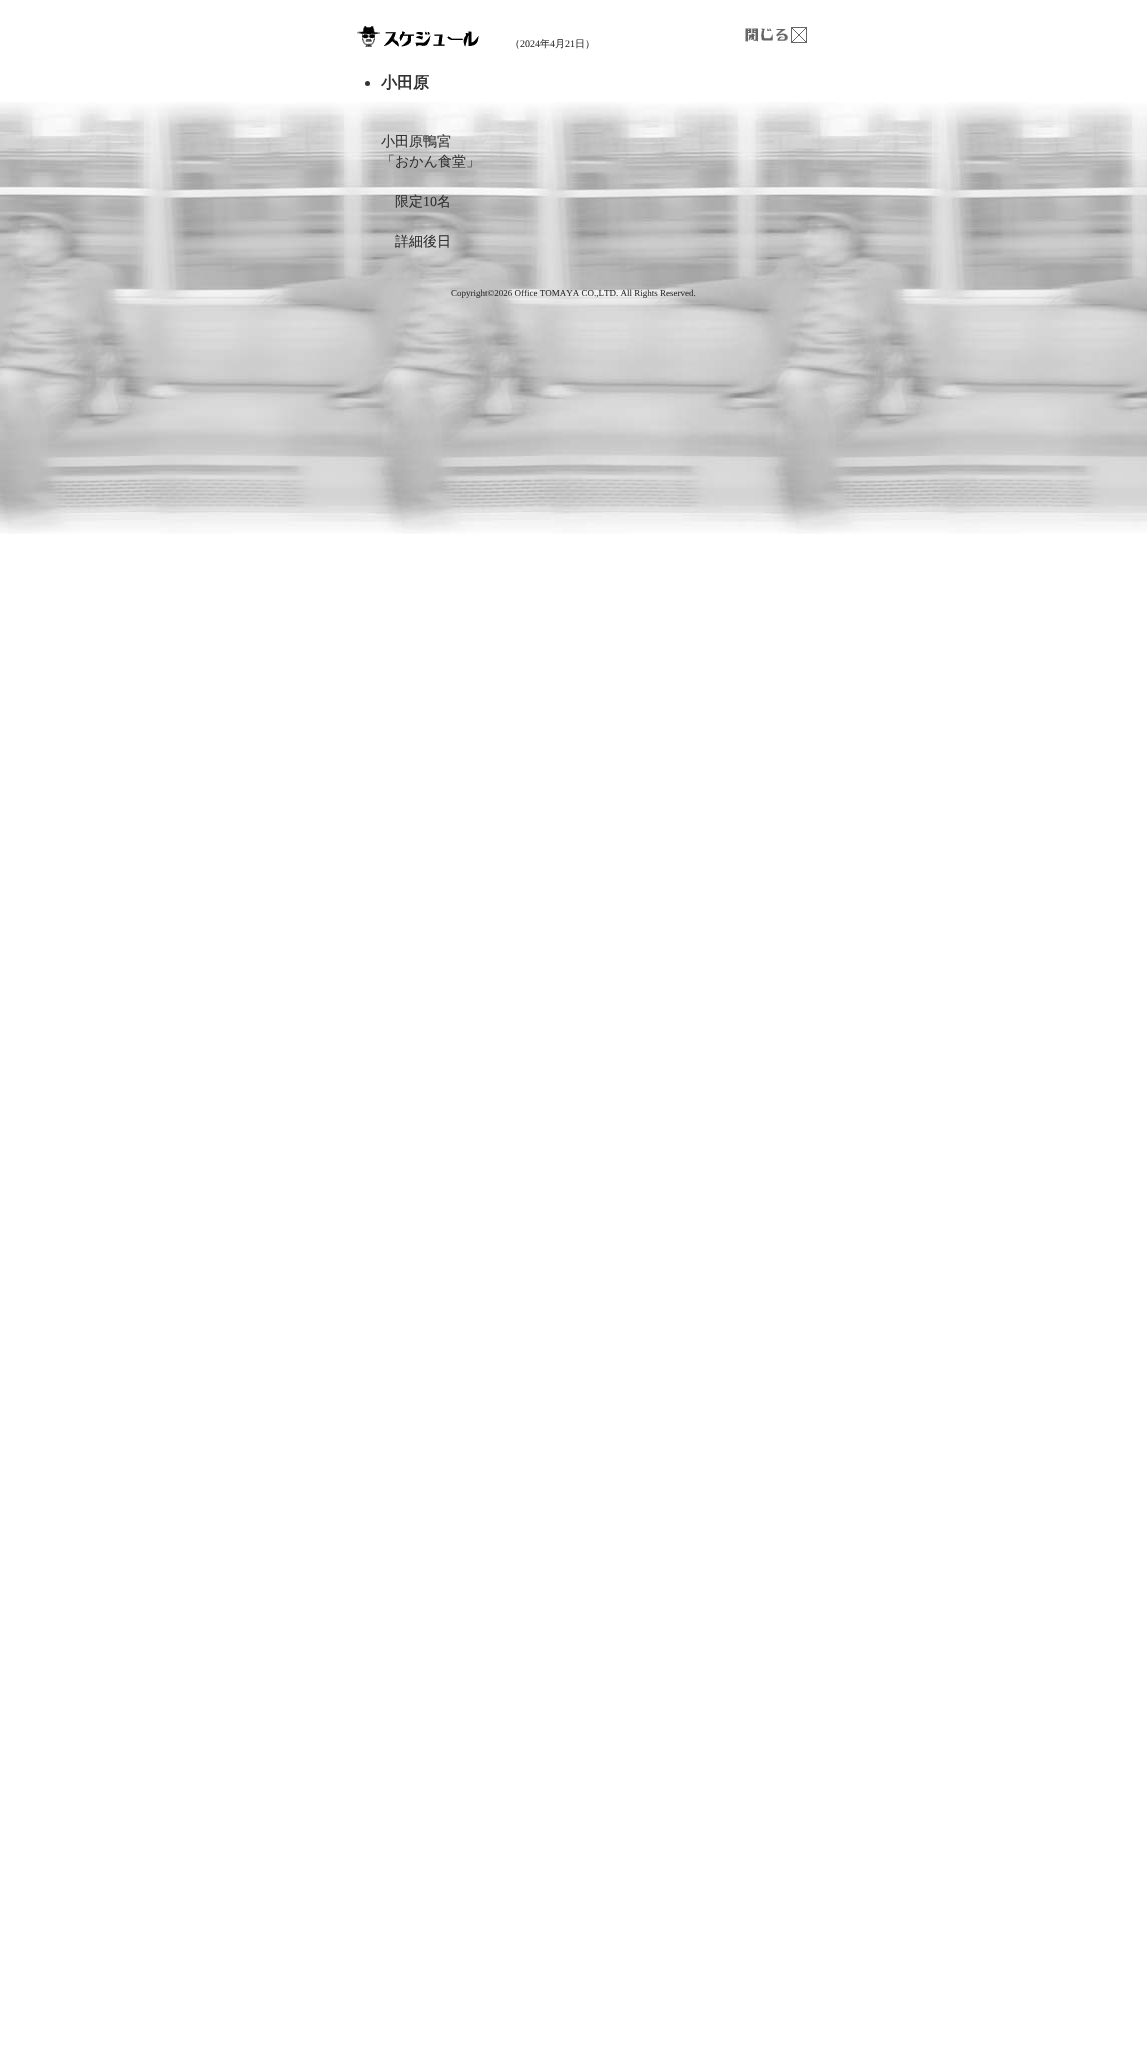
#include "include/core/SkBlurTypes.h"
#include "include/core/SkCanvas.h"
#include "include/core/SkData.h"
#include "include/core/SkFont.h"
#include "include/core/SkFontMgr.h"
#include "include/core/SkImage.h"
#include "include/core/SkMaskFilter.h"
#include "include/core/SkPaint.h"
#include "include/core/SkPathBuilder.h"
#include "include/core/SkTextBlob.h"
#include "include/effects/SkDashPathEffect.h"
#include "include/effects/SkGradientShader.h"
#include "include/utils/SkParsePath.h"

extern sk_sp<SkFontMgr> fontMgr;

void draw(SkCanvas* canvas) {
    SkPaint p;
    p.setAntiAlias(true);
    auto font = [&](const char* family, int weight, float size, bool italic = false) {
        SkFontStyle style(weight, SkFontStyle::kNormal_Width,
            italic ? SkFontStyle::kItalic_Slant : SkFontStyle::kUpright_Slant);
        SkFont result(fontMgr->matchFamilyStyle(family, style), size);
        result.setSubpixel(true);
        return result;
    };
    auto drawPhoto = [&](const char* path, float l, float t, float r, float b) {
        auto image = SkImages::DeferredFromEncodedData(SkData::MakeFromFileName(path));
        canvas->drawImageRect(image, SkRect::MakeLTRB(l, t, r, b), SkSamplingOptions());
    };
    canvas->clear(0xFFFFFFFF);
    drawPhoto("media/1.png", 0, 102, 1147, 534);
    drawPhoto("media/2.png", 357, 26, 479, 47);
    auto font1 = font("WenQuanYi Zen Hei", 500, 10);
    p.setColor(0xFF333333);
    canvas->drawString("（", 510, 47, font1, p);
    auto font2 = font("Liberation Serif", 400, 10);
    canvas->drawString("2024", 520, 47, font2, p);
    canvas->drawString("年", 540, 47, font1, p);
    canvas->drawString("4", 550, 47, font2, p);
    canvas->drawString("月", 555, 47, font1, p);
    canvas->drawString("21", 565, 47, font2, p);
    canvas->drawString("日）", 575, 47, font1, p);
    drawPhoto("media/3.png", 745, 27, 807, 43);
    canvas->drawCircle(367.5f, 83.5f, 2.5f, p);
    auto font3 = font("WenQuanYi Zen Hei", 700, 16);
    canvas->drawString("小田原", 381, 88, font3, p);
    auto font4 = font("WenQuanYi Zen Hei", 500, 14);
    {
        const struct { const char* s; float x, y; } items[] = {
            {"小田原鴨宮", 381, 146},
            {"「おかん食堂」", 381, 166},
            {"限定", 395, 206},
        };
        for (auto [s, x, y] : items) {
            canvas->drawString(s, x, y, font4, p);
        }
    }
    auto font5 = font("Liberation Serif", 400, 14);
    canvas->drawString("10", 423, 206, font5, p);
    canvas->drawString("名", 437, 206, font4, p);
    canvas->drawString("詳細後日", 395, 246, font4, p);
    auto font6 = font("Liberation Serif", 400, 9);
    canvas->drawString("Copyright©2026 Office TOMAYA CO.,LTD. All Rights Reserved.", 451, 296, font6, p);
}
